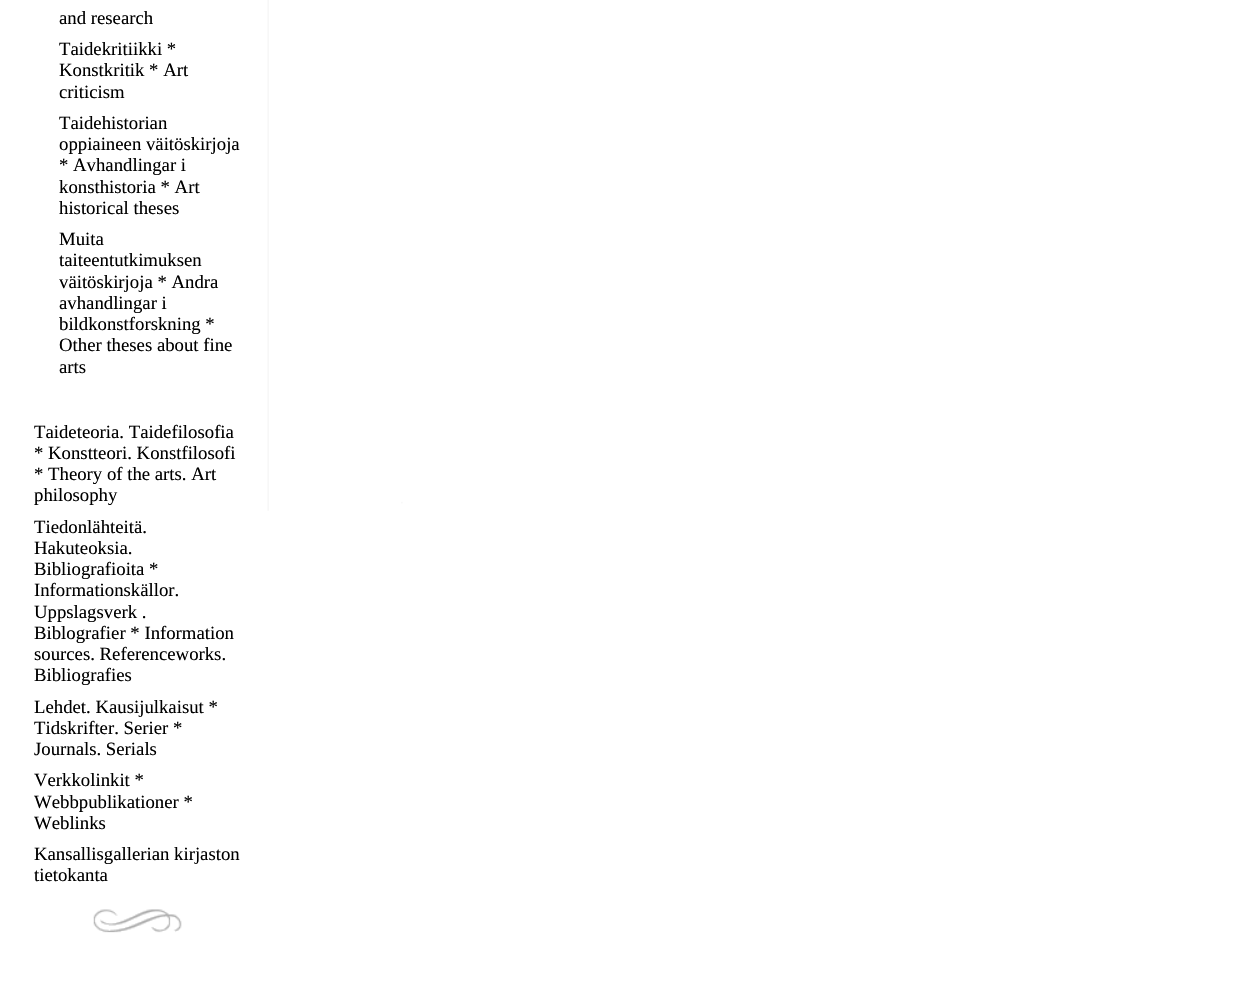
#include "include/core/SkBlurTypes.h"
#include "include/core/SkCanvas.h"
#include "include/core/SkData.h"
#include "include/core/SkFont.h"
#include "include/core/SkFontMgr.h"
#include "include/core/SkImage.h"
#include "include/core/SkMaskFilter.h"
#include "include/core/SkPaint.h"
#include "include/core/SkPathBuilder.h"
#include "include/core/SkTextBlob.h"
#include "include/effects/SkDashPathEffect.h"
#include "include/effects/SkGradientShader.h"
#include "include/utils/SkParsePath.h"

extern sk_sp<SkFontMgr> fontMgr;

void draw(SkCanvas* canvas) {
    SkPaint p;
    p.setAntiAlias(true);
    auto font = [&](const char* family, int weight, float size, bool italic = false) {
        SkFontStyle style(weight, SkFontStyle::kNormal_Width,
            italic ? SkFontStyle::kItalic_Slant : SkFontStyle::kUpright_Slant);
        SkFont result(fontMgr->matchFamilyStyle(family, style), size);
        result.setSubpixel(true);
        return result;
    };
    auto drawPhoto = [&](const char* path, float l, float t, float r, float b) {
        auto image = SkImages::DeferredFromEncodedData(SkData::MakeFromFileName(path));
        canvas->drawImageRect(image, SkRect::MakeLTRB(l, t, r, b), SkSamplingOptions());
    };
    canvas->clear(0xFFFFFFFF);
    auto font1 = font("Liberation Serif", 400, 18.75f);
    p.setColor(0xFF000000);
    {
        const struct { const char* s; float x, y; } items[] = {
            {"and research", 59, 24},
            {"Taidekritiikki *", 59, 55},
            {"Konstkritik * Art", 59, 76},
            {"criticism", 59, 98},
            {"Taidehistorian", 59, 129},
            {"oppiaineen väitöskirjoja", 59, 150},
            {"* Avhandlingar i", 59, 171},
            {"konsthistoria * Art", 59, 193},
            {"historical theses", 59, 214},
            {"Muita", 59, 245},
            {"taiteentutkimuksen", 59, 266},
            {"väitöskirjoja * Andra", 59, 288},
            {"avhandlingar i", 59, 309},
            {"bildkonstforskning *", 59, 330},
            {"Other theses about fine", 59, 351},
            {"arts", 59, 373},
            {"Taideteoria. Taidefilosofia", 34, 438},
            {"* Konstteori. Konstfilosofi", 34, 459},
            {"* Theory of the arts. Art", 34, 480},
            {"philosophy", 34, 501},
            {"Tiedonlähteitä.", 34, 533},
            {"Hakuteoksia.", 34, 554},
            {"Bibliografioita *", 34, 575},
            {"Informationskällor.", 34, 596},
            {"Uppslagsverk .", 34, 618},
            {"Biblografier * Information", 34, 639},
            {"sources. Referenceworks.", 34, 660},
            {"Bibliografies", 34, 681},
            {"Lehdet. Kausijulkaisut *", 34, 713},
            {"Tidskrifter. Serier *", 34, 734},
            {"Journals. Serials", 34, 755},
            {"Verkkolinkit *", 34, 786},
            {"Webbpublikationer *", 34, 808},
            {"Weblinks", 34, 829},
            {"Kansallisgallerian kirjaston", 34, 860},
            {"tietokanta", 34, 881},
        };
        for (auto [s, x, y] : items) {
            canvas->drawString(s, x, y, font1, p);
        }
    }
    drawPhoto("media/1.png", 93, 909, 182, 933);
    drawPhoto("media/2.png", 267, 0, 403, 511);
}
